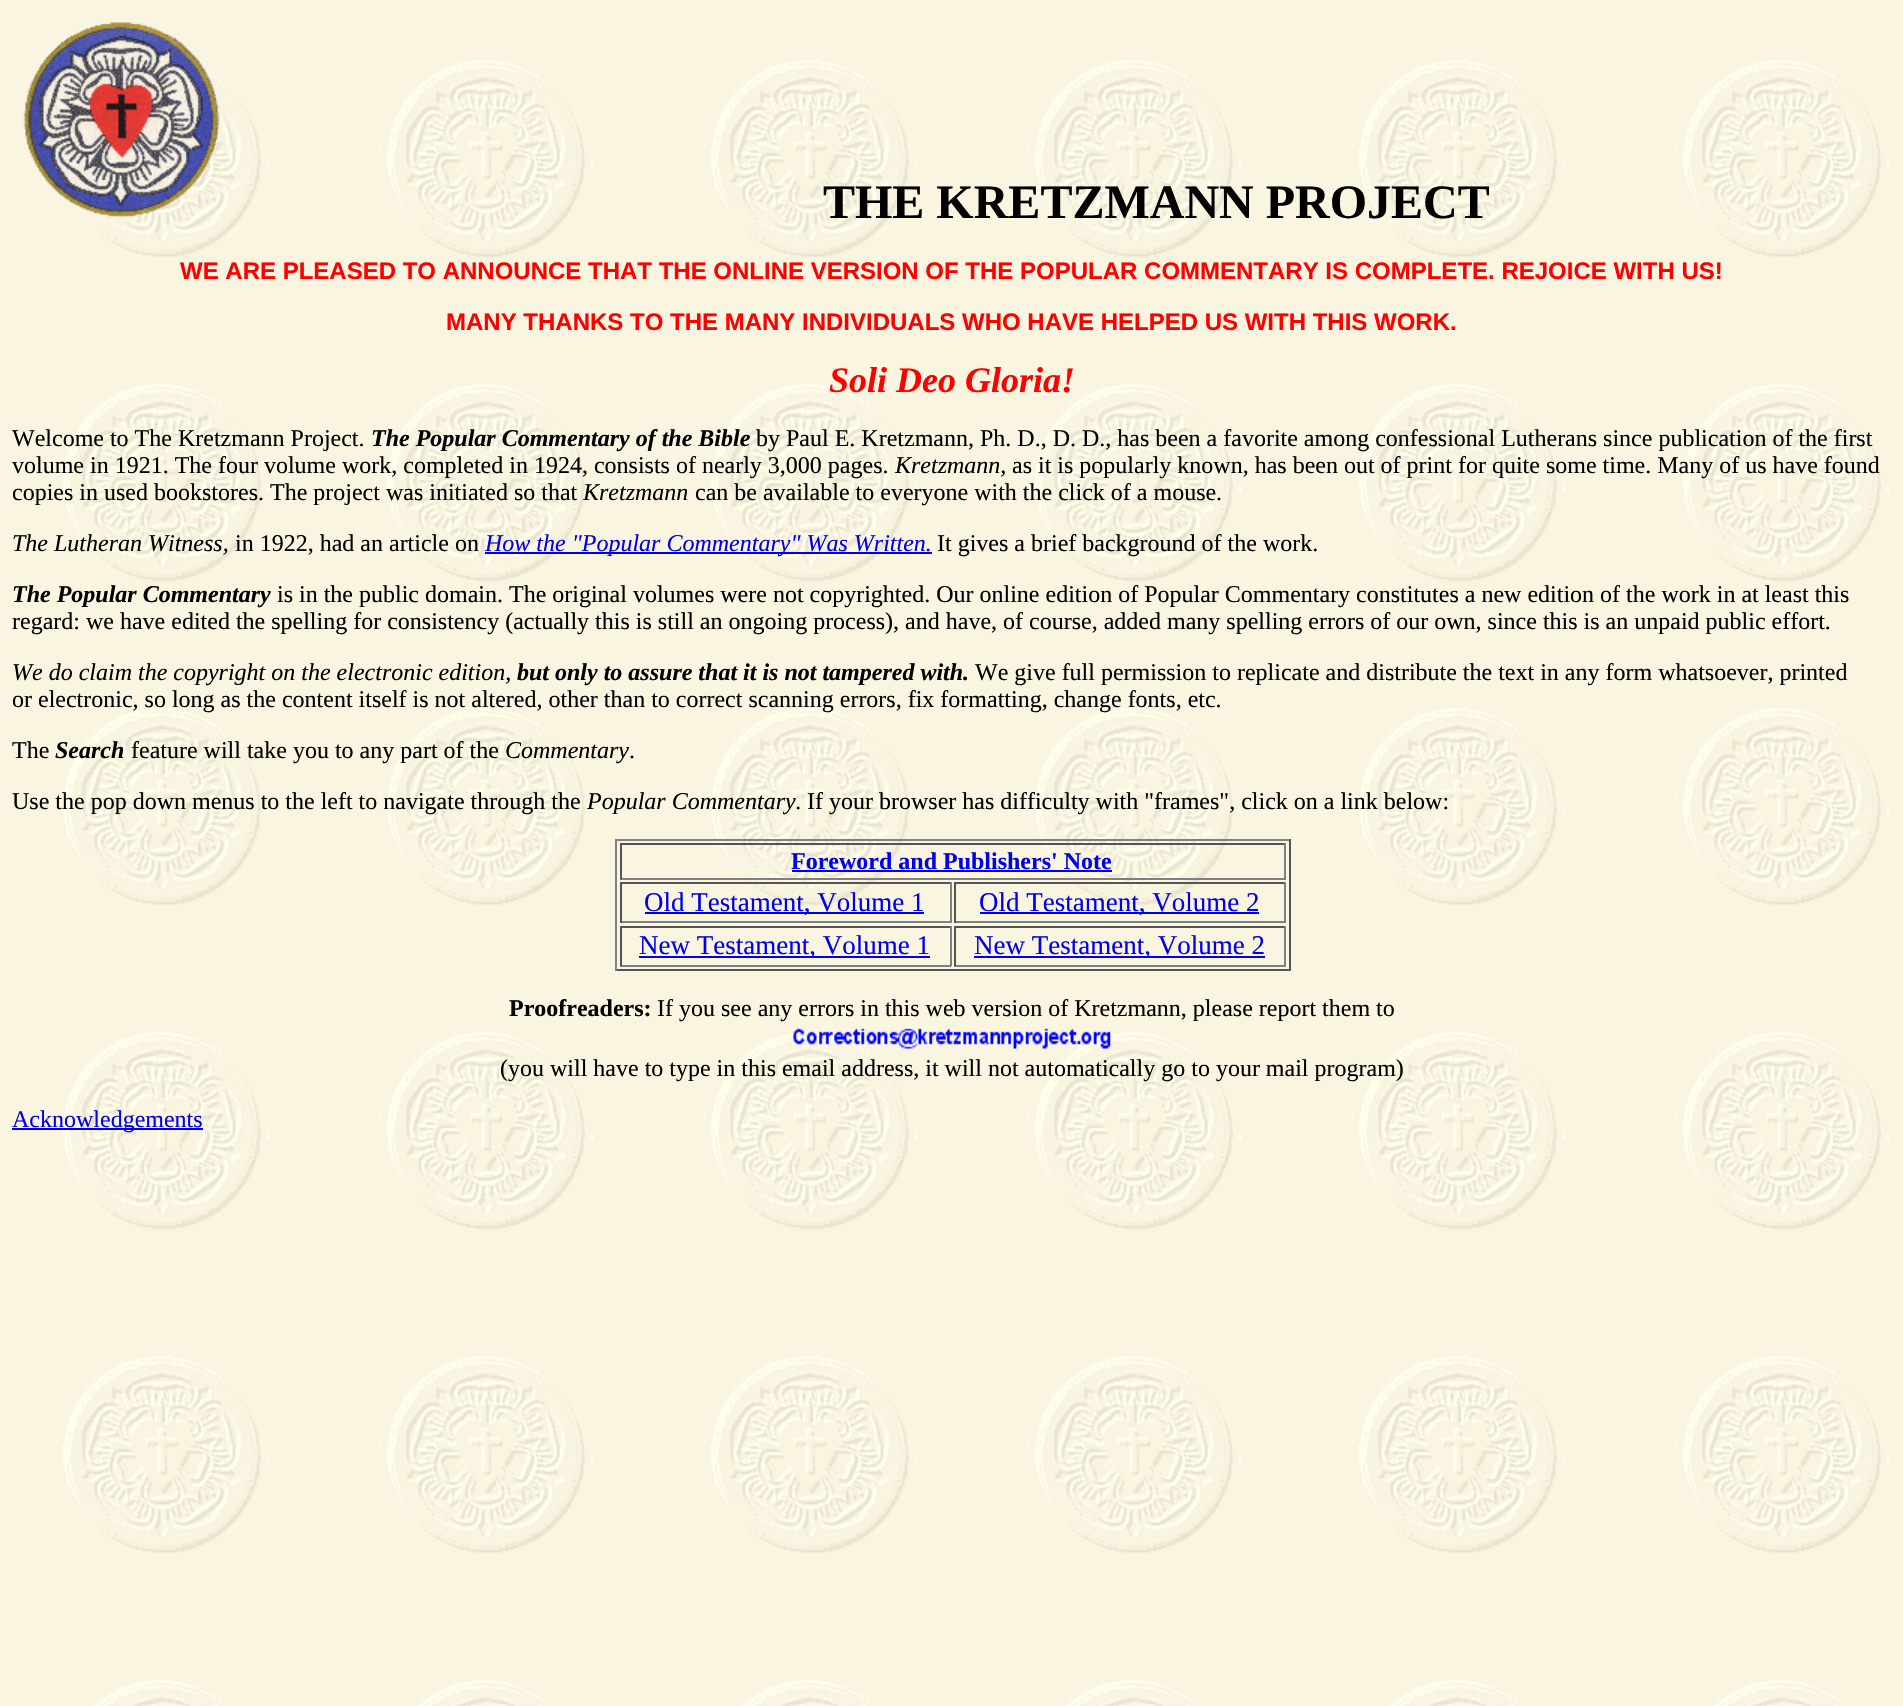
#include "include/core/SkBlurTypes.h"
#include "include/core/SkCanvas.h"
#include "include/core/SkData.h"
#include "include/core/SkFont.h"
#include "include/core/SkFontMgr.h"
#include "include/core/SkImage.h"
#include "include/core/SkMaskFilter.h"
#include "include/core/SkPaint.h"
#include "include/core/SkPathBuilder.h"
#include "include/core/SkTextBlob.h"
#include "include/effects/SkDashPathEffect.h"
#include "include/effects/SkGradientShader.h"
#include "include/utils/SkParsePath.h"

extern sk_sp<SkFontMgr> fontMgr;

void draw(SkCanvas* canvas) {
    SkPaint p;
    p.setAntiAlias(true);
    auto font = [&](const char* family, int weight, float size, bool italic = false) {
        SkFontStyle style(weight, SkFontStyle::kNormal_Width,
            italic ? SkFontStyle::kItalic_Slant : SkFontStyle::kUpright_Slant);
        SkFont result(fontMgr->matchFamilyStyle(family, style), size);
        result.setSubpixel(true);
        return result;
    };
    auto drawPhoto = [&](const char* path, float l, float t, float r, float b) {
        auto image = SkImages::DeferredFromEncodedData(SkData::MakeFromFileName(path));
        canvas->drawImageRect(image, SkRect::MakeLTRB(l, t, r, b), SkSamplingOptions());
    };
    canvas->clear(0xFFF9F5E1);
    drawPhoto("media/1.png", 55, 54, 1890, 1706);
    drawPhoto("media/2.png", 23, 22, 220, 218);
    auto font1 = font("Liberation Serif", 700, 48);
    p.setColor(0xFF000000);
    canvas->drawString("THE KRETZMANN PROJECT", 823, 218, font1, p);
    auto font2 = font("Liberation Sans", 700, 24);
    p.setColor(0xFFFF0000);
    canvas->drawString("WE ARE PLEASED TO ANNOUNCE THAT THE ONLINE VERSION OF THE POPULAR COMMENTARY IS COMPLETE. REJOICE WITH US!", 180, 279, font2, p);
    canvas->drawString("MANY THANKS TO THE MANY INDIVIDUALS WHO HAVE HELPED US WITH THIS WORK.", 446, 330, font2, p);
    auto font3 = font("Liberation Serif", 700, 36, true);
    canvas->drawString("Soli Deo Gloria!", 829, 392, font3, p);
    auto font4 = font("Liberation Serif", 400, 24);
    p.setColor(0xFF000000);
    canvas->drawString("Welcome to The Kretzmann Project.", 12, 446, font4, p);
    auto font5 = font("Liberation Serif", 700, 24, true);
    canvas->drawString("The Popular Commentary of the Bible", 371, 446, font5, p);
    canvas->drawString("by Paul E. Kretzmann, Ph. D., D. D., has been a favorite among confessional Lutherans since publication of the first", 756, 446, font4, p);
    canvas->drawString("volume in 1921. The four volume work, completed in 1924, consists of nearly 3,000 pages.", 12, 473, font4, p);
    auto font6 = font("Liberation Serif", 400, 24, true);
    canvas->drawString("Kretzmann,", 895, 473, font6, p);
    canvas->drawString("as it is popularly known, has been out of print for quite some time. Many of us have found", 1012, 473, font4, p);
    canvas->drawString("copies in used bookstores. The project was initiated so that", 12, 500, font4, p);
    canvas->drawString("Kretzmann", 583, 500, font6, p);
    canvas->drawString("can be available to everyone with the click of a mouse.", 695, 500, font4, p);
    canvas->drawString("The Lutheran Witness,", 12, 551, font6, p);
    canvas->drawString("in 1922, had an article on", 235, 551, font4, p);
    p.setColor(0xFF0000EE);
    canvas->drawRect(SkRect::MakeLTRB(485, 552, 932, 554), p);
    canvas->drawString("How the \"Popular Commentary\" Was Written.", 485, 551, font6, p);
    p.setColor(0xFF000000);
    canvas->drawString("It gives a brief background of the work.", 937, 551, font4, p);
    canvas->drawString("The Popular Commentary", 12, 602, font5, p);
    canvas->drawString("is in the public domain. The original volumes were not copyrighted. Our online edition of Popular Commentary constitutes a new edition of the work in at least this", 277, 602, font4, p);
    canvas->drawString("regard: we have edited the spelling for consistency (actually this is still an ongoing process), and have, of course, added many spelling errors of our own, since this is an unpaid public effort.", 12, 629, font4, p);
    canvas->drawString("We do claim the copyright on the electronic edition,", 12, 680, font6, p);
    canvas->drawString("but only to assure that it is not tampered with.", 517, 680, font5, p);
    {
        const struct { const char* s; float x, y; } items[] = {
            {"We give full permission to replicate and distribute the text in any form whatsoever, printed", 975, 680},
            {"or electronic, so long as the content itself is not altered, other than to correct scanning errors, fix formatting, change fonts, etc.", 12, 707},
            {"The", 12, 758},
        };
        for (auto [s, x, y] : items) {
            canvas->drawString(s, x, y, font4, p);
        }
    }
    canvas->drawString("Search", 55, 758, font5, p);
    canvas->drawString("feature will take you to any part of the", 131, 758, font4, p);
    canvas->drawString("Commentary", 505, 758, font6, p);
    canvas->drawString(".", 629, 758, font4, p);
    canvas->drawString("Use the pop down menus to the left to navigate through the", 12, 809, font4, p);
    canvas->drawString("Popular Commentary.", 587, 809, font6, p);
    canvas->drawString("If your browser has difficulty with \"frames\", click on a link below:", 807, 809, font4, p);
    {
        const struct { float l, t, r, b; SkColor color; } items[] = {
            {615, 839, 1290, 841, 0xFF808080},
            {1289, 839, 1291, 971, 0xFF555555},
            {615, 969, 1290, 971, 0xFF555555},
            {615, 839, 617, 971, 0xFF808080},
            {620, 843, 1286, 845, 0xFF555555},
            {1284, 843, 1286, 879, 0xFF808080},
            {620, 878, 1286, 880, 0xFF808080},
            {620, 843, 622, 879, 0xFF555555},
        };
        for (auto [l, t, r, b, color] : items) {
            p.setColor(color);
            canvas->drawRect(SkRect::MakeLTRB(l, t, r, b), p);
        }
    }
    auto font7 = font("Liberation Serif", 700, 24);
    p.setColor(0xFF0000EE);
    canvas->drawString("Foreword and Publishers' Note", 791, 869, font7, p);
    {
        const struct { float l, t, r, b; SkColor color; } items[] = {
            {792, 870, 1112, 872, 0xFF0000EE},
            {620, 882, 951, 884, 0xFF555555},
            {950, 882, 952, 923, 0xFF808080},
            {620, 921, 951, 923, 0xFF808080},
            {620, 882, 622, 923, 0xFF555555},
            {645, 912, 924, 914, 0xFF0000EE},
        };
        for (auto [l, t, r, b, color] : items) {
            p.setColor(color);
            canvas->drawRect(SkRect::MakeLTRB(l, t, r, b), p);
        }
    }
    auto font8 = font("Liberation Serif", 400, 27);
    canvas->drawString("Old Testament, Volume 1", 644, 911, font8, p);
    {
        const struct { float l, t, r, b; SkColor color; } items[] = {
            {954, 882, 1286, 884, 0xFF555555},
            {1284, 882, 1286, 923, 0xFF808080},
            {954, 921, 1286, 923, 0xFF808080},
            {954, 882, 956, 923, 0xFF555555},
            {980, 912, 1259, 914, 0xFF0000EE},
        };
        for (auto [l, t, r, b, color] : items) {
            p.setColor(color);
            canvas->drawRect(SkRect::MakeLTRB(l, t, r, b), p);
        }
    }
    canvas->drawString("Old Testament, Volume 2", 979, 911, font8, p);
    {
        const struct { float l, t, r, b; SkColor color; } items[] = {
            {620, 926, 951, 928, 0xFF555555},
            {950, 926, 952, 966, 0xFF808080},
            {620, 965, 951, 967, 0xFF808080},
            {620, 926, 622, 966, 0xFF555555},
            {639, 956, 930, 958, 0xFF0000EE},
        };
        for (auto [l, t, r, b, color] : items) {
            p.setColor(color);
            canvas->drawRect(SkRect::MakeLTRB(l, t, r, b), p);
        }
    }
    canvas->drawString("New Testament, Volume 1", 639, 954, font8, p);
    {
        const struct { float l, t, r, b; SkColor color; } items[] = {
            {954, 926, 1286, 928, 0xFF555555},
            {1284, 926, 1286, 966, 0xFF808080},
            {954, 965, 1286, 967, 0xFF808080},
            {954, 926, 956, 966, 0xFF555555},
            {974, 956, 1265, 958, 0xFF0000EE},
        };
        for (auto [l, t, r, b, color] : items) {
            p.setColor(color);
            canvas->drawRect(SkRect::MakeLTRB(l, t, r, b), p);
        }
    }
    canvas->drawString("New Testament, Volume 2", 974, 954, font8, p);
    p.setColor(0xFF000000);
    canvas->drawString("Proofreaders:", 509, 1016, font7, p);
    canvas->drawString("If you see any errors in this web version of Kretzmann, please report them to", 657, 1016, font4, p);
    drawPhoto("media/3.png", 793, 1028, 1111, 1049);
    canvas->drawString("(you will have to type in this email address, it will not automatically go to your mail program)", 500, 1076, font4, p);
    p.setColor(0xFF0000EE);
    canvas->drawRect(SkRect::MakeLTRB(12, 1128, 203, 1130), p);
    canvas->drawString("Acknowledgements", 12, 1127, font4, p);
}
